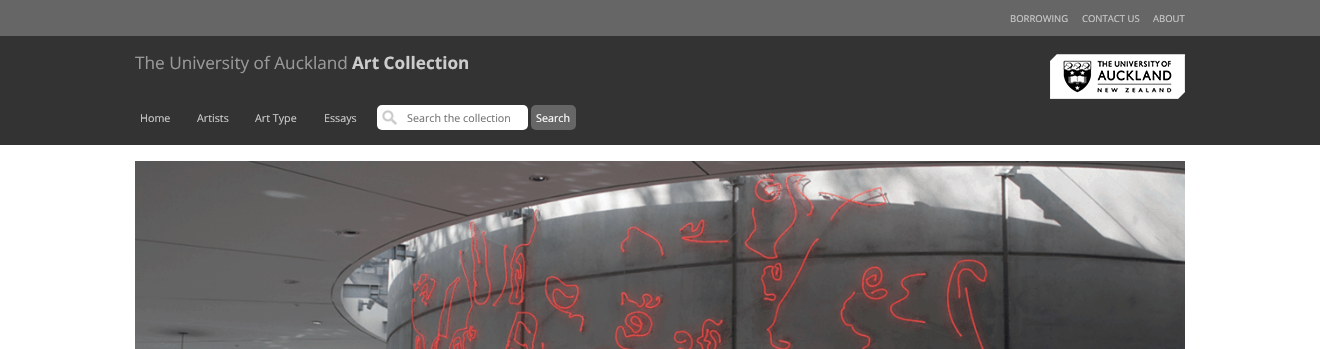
#include "include/core/SkBlurTypes.h"
#include "include/core/SkCanvas.h"
#include "include/core/SkData.h"
#include "include/core/SkFont.h"
#include "include/core/SkFontMgr.h"
#include "include/core/SkImage.h"
#include "include/core/SkMaskFilter.h"
#include "include/core/SkPaint.h"
#include "include/core/SkPathBuilder.h"
#include "include/core/SkTextBlob.h"
#include "include/effects/SkDashPathEffect.h"
#include "include/effects/SkGradientShader.h"
#include "include/utils/SkParsePath.h"

extern sk_sp<SkFontMgr> fontMgr;

void draw(SkCanvas* canvas) {
    SkPaint p;
    p.setAntiAlias(true);
    auto font = [&](const char* family, int weight, float size, bool italic = false) {
        SkFontStyle style(weight, SkFontStyle::kNormal_Width,
            italic ? SkFontStyle::kItalic_Slant : SkFontStyle::kUpright_Slant);
        SkFont result(fontMgr->matchFamilyStyle(family, style), size);
        result.setSubpixel(true);
        return result;
    };
    auto drawPhoto = [&](const char* path, float l, float t, float r, float b) {
        auto image = SkImages::DeferredFromEncodedData(SkData::MakeFromFileName(path));
        canvas->drawImageRect(image, SkRect::MakeLTRB(l, t, r, b), SkSamplingOptions());
    };
    canvas->clear(0xFFFFFFFF);
    p.setColor(0xFF333333);
    canvas->drawRect(SkRect::MakeLTRB(0, 36, 1320, 145), p);
    p.setColor(0xFF666666);
    canvas->drawRect(SkRect::MakeLTRB(0, 0, 1320, 36), p);
    auto font1 = font("Open Sans", 400, 9.5f);
    p.setColor(0xFFCCCCCC);
    {
        const struct { const char* s; float x, y; } items[] = {
            {"BORROWING", 1010, 22},
            {"CONTACT US", 1082, 22},
            {"ABOUT", 1153, 22},
        };
        for (auto [s, x, y] : items) {
            canvas->drawString(s, x, y, font1, p);
        }
    }
    auto font2 = font("Open Sans", 400, 17.2f);
    p.setColor(0xFF999999);
    canvas->drawString("The University of Auckland", 135, 69, font2, p);
    auto font3 = font("Open Sans", 700, 17.2f);
    p.setColor(0xFFCCCCCC);
    canvas->drawString("Art Collection", 352, 69, font3, p);
    drawPhoto("media/1.png", 1050, 54, 1185, 99);
    auto font4 = font("Open Sans", 400, 10.75f);
    {
        const struct { const char* s; float x, y; } items[] = {
            {"Home", 140, 122},
            {"Artists", 197, 122},
            {"Art Type", 255, 122},
            {"Essays", 324, 122},
        };
        for (auto [s, x, y] : items) {
            canvas->drawString(s, x, y, font4, p);
        }
    }
    p.setColor(0xFFFFFFFF);
    canvas->drawRoundRect(SkRect::MakeLTRB(377, 105, 528, 130), 5, 5, p);
    drawPhoto("media/2.png", 382, 110, 397, 125);
    p.setColor(0xFF757575);
    canvas->drawString("Search the collection", 407, 122, font4, p);
    p.setColor(0xFF666666);
    canvas->drawRoundRect(SkRect::MakeLTRB(531, 105, 576, 130), 5, 5, p);
    p.setColor(0xFFFFFFFF);
    canvas->drawString("Search", 536, 122, font4, p);
    drawPhoto("media/3.png", 135, 161, 1185, 349);
}
